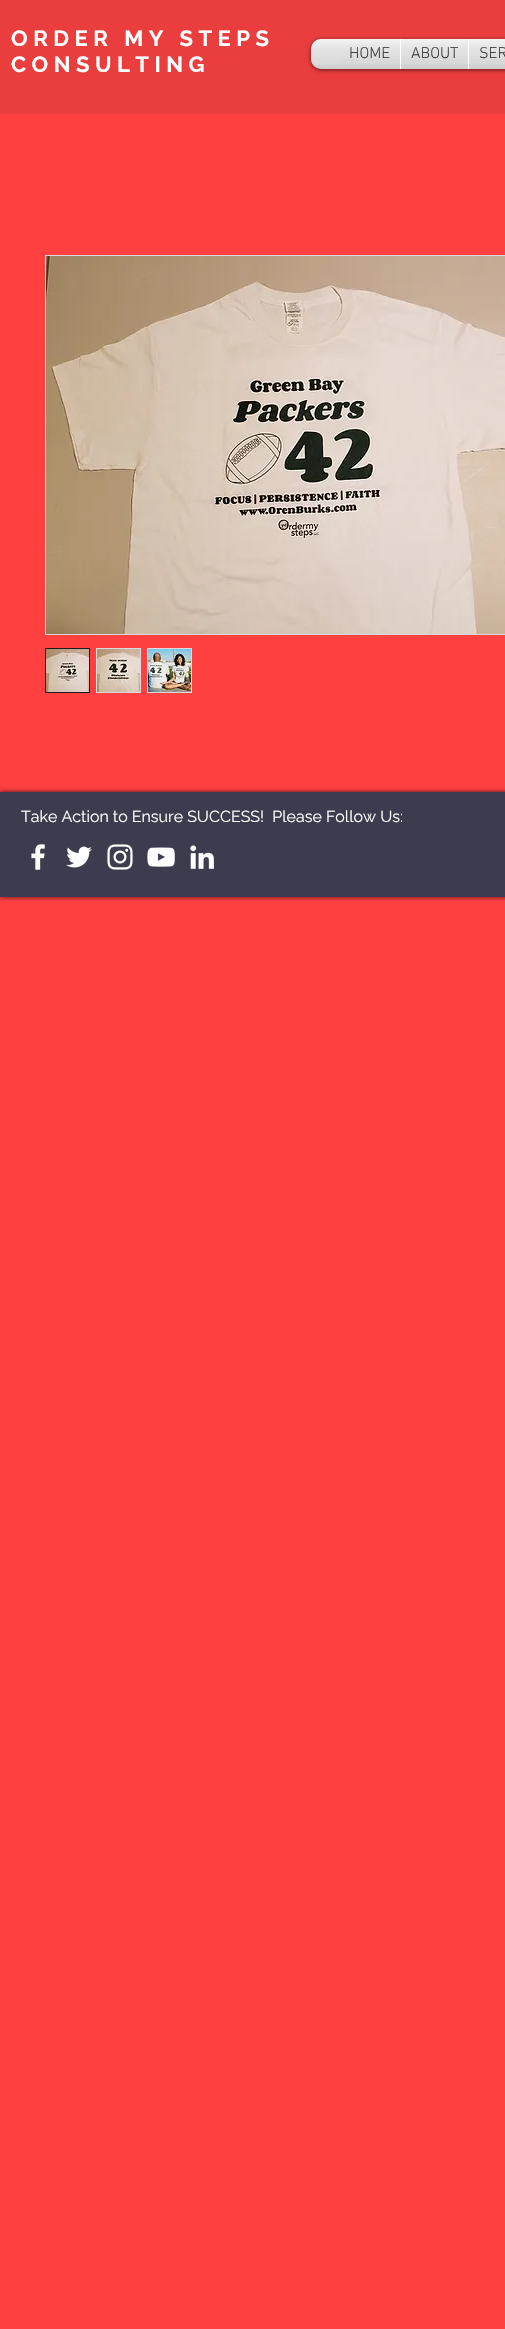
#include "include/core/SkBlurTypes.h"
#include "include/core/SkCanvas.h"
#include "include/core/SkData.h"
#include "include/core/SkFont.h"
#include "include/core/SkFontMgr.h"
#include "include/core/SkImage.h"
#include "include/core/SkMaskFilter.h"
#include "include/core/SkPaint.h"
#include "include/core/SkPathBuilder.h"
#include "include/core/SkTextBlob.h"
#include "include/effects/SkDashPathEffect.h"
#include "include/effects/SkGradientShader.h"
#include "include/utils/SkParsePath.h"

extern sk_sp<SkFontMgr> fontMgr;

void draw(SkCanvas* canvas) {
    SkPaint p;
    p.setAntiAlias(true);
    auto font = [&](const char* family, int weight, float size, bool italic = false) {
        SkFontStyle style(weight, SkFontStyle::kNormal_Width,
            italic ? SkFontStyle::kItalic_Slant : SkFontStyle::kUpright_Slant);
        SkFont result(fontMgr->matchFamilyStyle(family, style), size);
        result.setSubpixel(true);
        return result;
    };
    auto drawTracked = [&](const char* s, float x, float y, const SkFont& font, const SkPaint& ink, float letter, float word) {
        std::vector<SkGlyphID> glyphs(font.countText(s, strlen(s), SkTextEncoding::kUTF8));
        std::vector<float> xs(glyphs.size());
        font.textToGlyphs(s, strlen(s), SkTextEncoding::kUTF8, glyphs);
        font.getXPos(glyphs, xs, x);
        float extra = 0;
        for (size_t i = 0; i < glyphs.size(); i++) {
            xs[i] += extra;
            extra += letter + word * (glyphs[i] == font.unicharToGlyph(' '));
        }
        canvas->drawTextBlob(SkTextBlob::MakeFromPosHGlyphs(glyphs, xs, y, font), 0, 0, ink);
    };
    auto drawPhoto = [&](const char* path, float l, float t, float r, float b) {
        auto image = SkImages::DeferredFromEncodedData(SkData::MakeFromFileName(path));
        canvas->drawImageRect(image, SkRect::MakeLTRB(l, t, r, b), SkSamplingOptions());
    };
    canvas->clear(0xFFFF4040);
    p.setColor(0xFFEA3D3D);
    canvas->drawRect(SkRect::MakeLTRB(0, 0, 505, 114), p);
    auto font1 = font("Raleway", 700, 22);
    p.setColor(0xFFFFFFFF);
    drawTracked("ORDER MY STEPS", 11, 46, font1, p, 5.5f, 0);
    drawTracked("CONSULTING", 11, 72, font1, p, 5.5f, 0);
    p.setColor(0x99000000);
    p.setMaskFilter(SkMaskFilter::MakeBlur(kNormal_SkBlurStyle, 2));
    canvas->drawRoundRect(SkRect::MakeLTRB(311, 40, 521, 70), 10, 10, p);
    p.setMaskFilter(nullptr);
    p.setColor(0xFFF1F1F1);
    canvas->drawRoundRect(SkRect::MakeLTRB(311, 39, 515, 69), 10, 10, p);
    drawPhoto("media/1.png", 311, 39, 339, 67);
    drawPhoto("media/2.png", 311, 39, 339, 69);
    auto font2 = font("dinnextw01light", 300, 16);
    p.setColor(0xFF000000);
    canvas->drawString("HOME", 349, 58, font2, p);
    drawPhoto("media/3.png", 339, 39, 400, 59);
    drawPhoto("media/4.png", 339, 39, 400, 69);
    p.setColor(0xFFFFFFFF);
    canvas->drawRect(SkRect::MakeLTRB(400, 39, 401, 69), p);
    p.setColor(0xFF000000);
    canvas->drawString("ABOUT", 411, 58, font2, p);
    drawPhoto("media/5.png", 401, 39, 468, 59);
    drawPhoto("media/6.png", 401, 39, 468, 69);
    p.setColor(0xFFFFFFFF);
    canvas->drawRect(SkRect::MakeLTRB(468, 39, 469, 69), p);
    p.setColor(0xFF000000);
    canvas->drawString("SER", 479, 58, font2, p);
    drawPhoto("media/7.png", 469, 39, 505, 59);
    drawPhoto("media/8.png", 469, 39, 505, 69);
    p.setStyle(SkPaint::kStroke_Style);
    p.setStrokeWidth(1);
    p.setColor(0xFFDADADA);
    canvas->drawRect(SkRect::MakeLTRB(45.5f, 255.5f, 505.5f, 634.5f), p);
    drawPhoto("media/9.png", 46, 256, 505, 634);
    p.setColor(0xFF1B1B1E);
    canvas->drawRect(SkRect::MakeLTRB(45.5f, 648.5f, 89.5f, 692.5f), p);
    drawPhoto("media/10.png", 46, 649, 89, 692);
    p.setStyle(SkPaint::kFill_Style);
    p.setColor(0xFFDADADA);
    canvas->drawRect(SkRect::MakeLTRB(96, 648, 141, 693), p);
    drawPhoto("media/11.png", 97, 649, 140, 692);
    canvas->drawRect(SkRect::MakeLTRB(147, 648, 192, 693), p);
    drawPhoto("media/12.png", 148, 649, 191, 692);
    p.setColor(0xB3000000);
    p.setMaskFilter(SkMaskFilter::MakeBlur(kNormal_SkBlurStyle, 2.5f));
    canvas->drawRect(SkRect::MakeLTRB(0, 792, 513, 897), p);
    p.setMaskFilter(nullptr);
    p.setColor(0xFF3C3C4E);
    canvas->drawRect(SkRect::MakeLTRB(0, 792, 505, 897), p);
    auto font3 = font("Raleway", 400, 16);
    p.setColor(0xFFFFFFFF);
    canvas->drawString("Take Action to Ensure SUCCESS!  Please Follow Us:", 21, 822, font3, p);
    drawPhoto("media/13.png", 31, 844, 45, 870);
    drawPhoto("media/14.png", 66, 846, 92, 868);
    drawPhoto("media/15.png", 107, 844, 133, 870);
    drawPhoto("media/16.png", 147, 847, 175, 867);
    drawPhoto("media/17.png", 190, 845, 214, 869);
}
